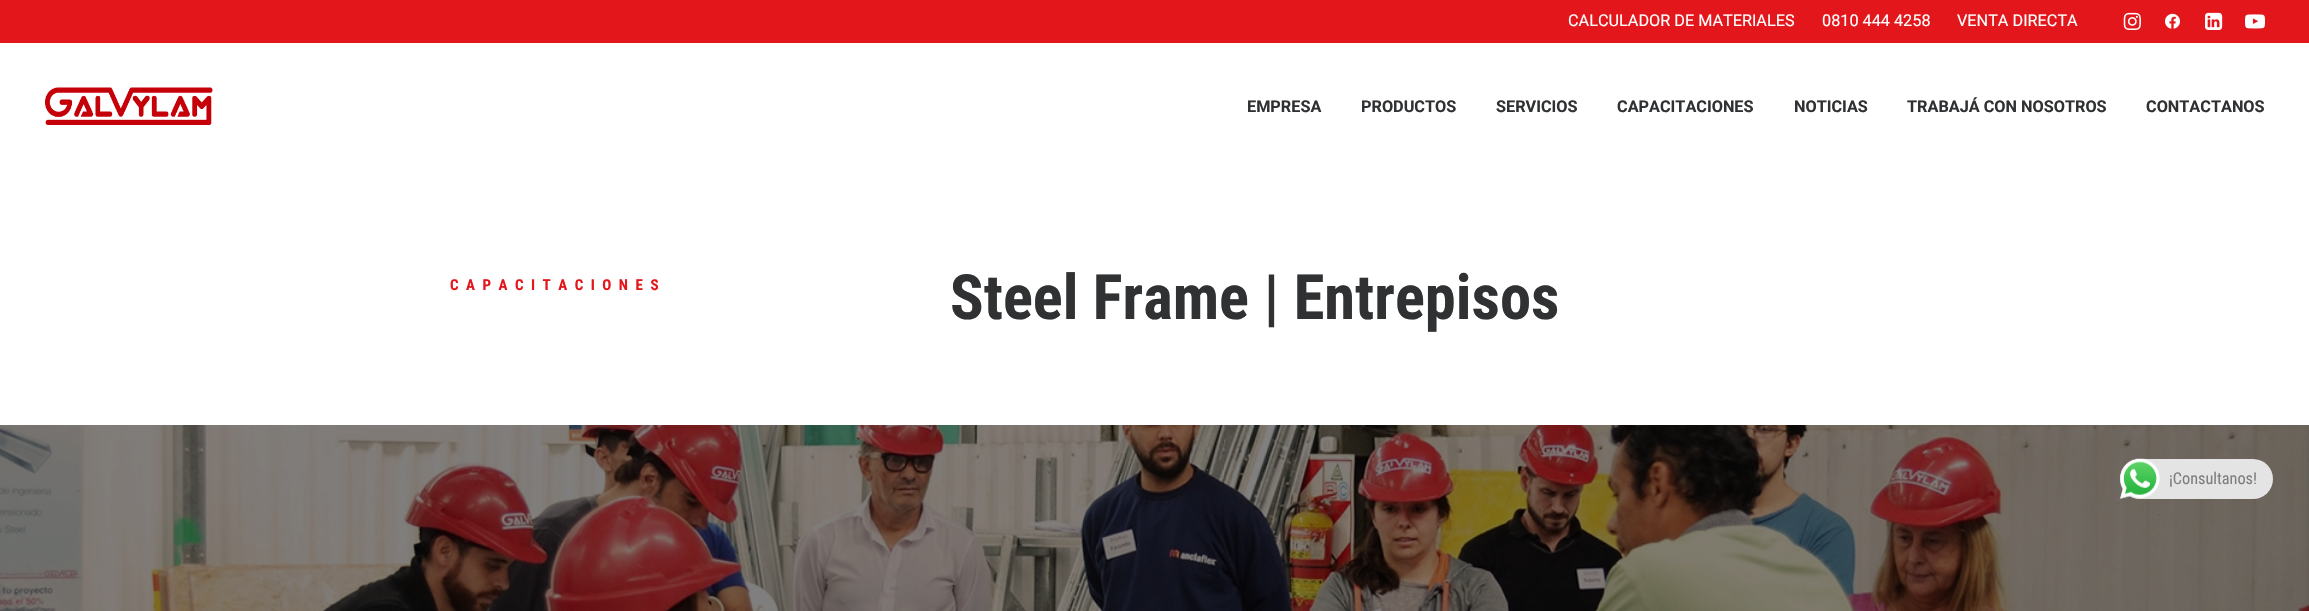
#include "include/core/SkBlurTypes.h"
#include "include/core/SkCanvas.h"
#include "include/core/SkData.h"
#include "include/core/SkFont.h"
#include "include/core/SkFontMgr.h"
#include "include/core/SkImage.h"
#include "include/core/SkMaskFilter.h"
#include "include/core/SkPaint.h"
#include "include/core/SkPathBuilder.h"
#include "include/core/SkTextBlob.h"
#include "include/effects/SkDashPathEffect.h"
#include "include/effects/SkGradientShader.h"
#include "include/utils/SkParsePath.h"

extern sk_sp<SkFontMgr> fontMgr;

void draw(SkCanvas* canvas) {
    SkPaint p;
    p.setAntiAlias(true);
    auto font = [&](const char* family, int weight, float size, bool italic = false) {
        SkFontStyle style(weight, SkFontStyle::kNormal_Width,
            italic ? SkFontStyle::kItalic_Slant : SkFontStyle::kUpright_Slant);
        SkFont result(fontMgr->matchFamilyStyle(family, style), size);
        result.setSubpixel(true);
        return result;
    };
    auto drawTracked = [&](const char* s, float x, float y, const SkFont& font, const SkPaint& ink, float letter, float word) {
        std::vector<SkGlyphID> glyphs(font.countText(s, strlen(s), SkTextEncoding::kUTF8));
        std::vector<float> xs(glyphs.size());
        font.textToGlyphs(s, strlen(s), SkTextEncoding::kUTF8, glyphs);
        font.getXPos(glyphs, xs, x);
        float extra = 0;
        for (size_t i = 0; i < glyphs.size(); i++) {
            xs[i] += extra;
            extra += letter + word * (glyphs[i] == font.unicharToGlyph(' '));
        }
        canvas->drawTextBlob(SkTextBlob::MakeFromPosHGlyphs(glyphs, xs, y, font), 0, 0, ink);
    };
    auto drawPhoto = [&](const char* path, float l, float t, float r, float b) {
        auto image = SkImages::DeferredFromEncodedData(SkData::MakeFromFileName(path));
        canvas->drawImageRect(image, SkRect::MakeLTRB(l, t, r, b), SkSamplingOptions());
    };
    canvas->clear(0xFFFFFFFF);
    p.setColor(0xFFE3161B);
    canvas->drawRect(SkRect::MakeLTRB(0, 0, 2309, 43), p);
    auto font1 = font("Roboto", 400, 16.25f);
    p.setColor(0xFFFFFFFF);
    {
        const struct { const char* s; float x, y; } items[] = {
            {"CALCULADOR DE MATERIALES", 1568, 26},
            {"0810 444 4258", 1822, 26},
            {"VENTA DIRECTA", 1957, 26},
        };
        for (auto [s, x, y] : items) {
            canvas->drawString(s, x, y, font1, p);
        }
    }
    drawPhoto("media/1.png", 2123, 12, 2141, 30);
    drawPhoto("media/2.png", 2165, 13, 2180, 29);
    drawPhoto("media/3.png", 2205, 12, 2223, 30);
    drawPhoto("media/4.png", 2245, 14, 2265, 29);
    drawPhoto("media/5.png", 45, 87, 213, 125);
    auto font2 = font("Roboto", 700, 16.25f);
    p.setColor(0xFF303133);
    {
        const struct { const char* s; float x, y; } items[] = {
            {"EMPRESA", 1247, 112},
            {"PRODUCTOS", 1361, 112},
            {"SERVICIOS", 1496, 112},
            {"CAPACITACIONES", 1617, 112},
            {"NOTICIAS", 1794, 112},
            {"TRABAJÁ CON NOSOTROS", 1907, 112},
            {"CONTACTANOS", 2146, 112},
        };
        for (auto [s, x, y] : items) {
            canvas->drawString(s, x, y, font2, p);
        }
    }
    auto font3 = font("Roboto Condensed", 700, 15);
    p.setColor(0xFFE3161B);
    drawTracked("CAPACITACIONES", 450, 290, font3, p, 7.5f, 0);
    auto font4 = font("Roboto Condensed", 700, 62.5f);
    p.setColor(0xFF303133);
    canvas->drawString("Steel Frame | Entrepisos", 950, 319, font4, p);
    drawPhoto("media/6.png", 0, 425, 2309, 611);
    p.setColor(0xFFE4E4E4);
    canvas->drawRoundRect(SkRect::MakeLTRB(2120, 459, 2273, 499), 20, 20, p);
    drawPhoto("media/7.png", 2120, 458, 2160, 499);
    auto font5 = font("Roboto Condensed", 400, 16.25f);
    p.setColor(0xFF7F7D7D);
    canvas->drawString("¡Consultanos!", 2169, 484, font5, p);
}
